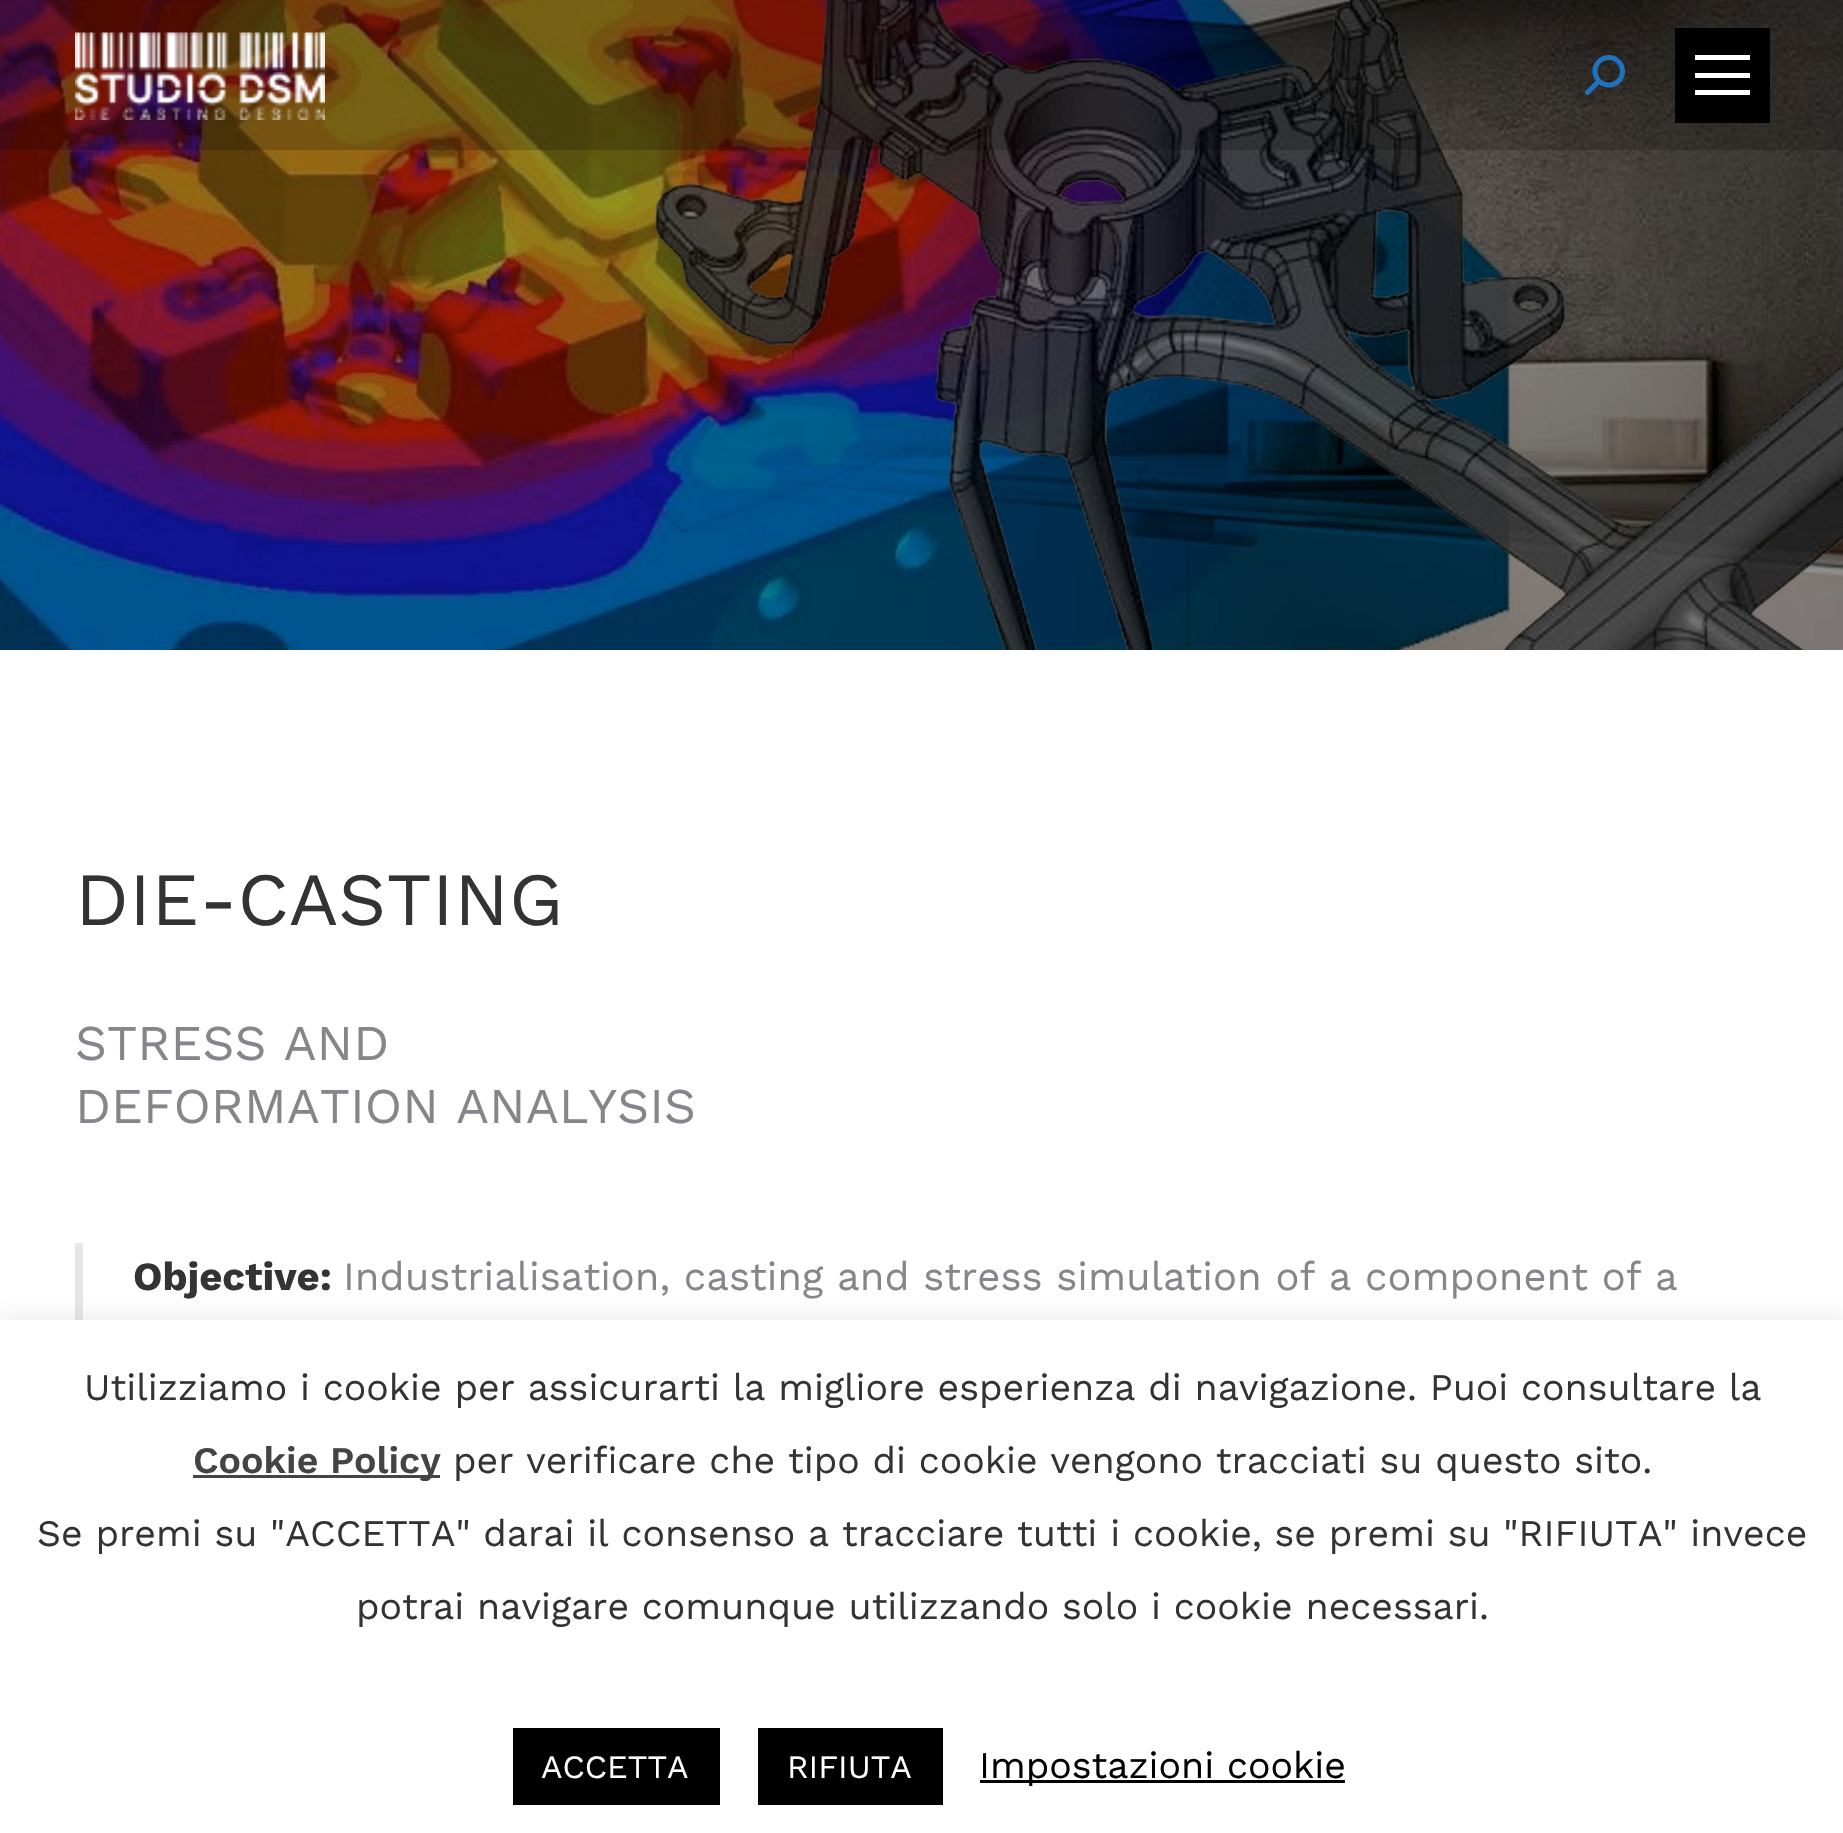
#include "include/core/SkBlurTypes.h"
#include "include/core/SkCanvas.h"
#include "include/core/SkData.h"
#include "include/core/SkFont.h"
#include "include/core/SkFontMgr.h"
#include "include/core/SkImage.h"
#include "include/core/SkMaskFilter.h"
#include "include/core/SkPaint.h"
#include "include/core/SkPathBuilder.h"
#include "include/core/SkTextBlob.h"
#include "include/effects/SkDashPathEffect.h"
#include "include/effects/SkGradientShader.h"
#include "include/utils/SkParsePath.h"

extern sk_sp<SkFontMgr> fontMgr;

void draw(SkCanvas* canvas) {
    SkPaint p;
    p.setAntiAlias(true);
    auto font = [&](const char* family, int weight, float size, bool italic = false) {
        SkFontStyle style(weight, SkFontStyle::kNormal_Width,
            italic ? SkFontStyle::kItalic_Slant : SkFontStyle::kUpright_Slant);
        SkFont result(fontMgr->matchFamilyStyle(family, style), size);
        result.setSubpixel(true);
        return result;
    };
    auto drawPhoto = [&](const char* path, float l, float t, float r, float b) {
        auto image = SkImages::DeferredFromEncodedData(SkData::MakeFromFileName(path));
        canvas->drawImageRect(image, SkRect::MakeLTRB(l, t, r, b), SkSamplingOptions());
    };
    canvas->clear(0xFFFFFFFF);
    drawPhoto("media/1.png", 0, 0, 1843, 650);
    p.setColor(0x33000000);
    canvas->drawRect(SkRect::MakeLTRB(0, 0, 1843, 150), p);
    drawPhoto("media/2.png", 75, 32, 325, 120);
    drawPhoto("media/3.png", 1585, 55, 1625, 95);
    {
        const struct { float l, t, r, b; SkColor color; } items[] = {
            {1675, 28, 1770, 123, 0xFF000000},
            {1695, 55, 1750, 60, 0xFFFFFFFF},
            {1695, 73, 1750, 78, 0xFFFFFFFF},
            {1695, 90, 1750, 95, 0xFFFFFFFF},
        };
        for (auto [l, t, r, b, color] : items) {
            p.setColor(color);
            canvas->drawRect(SkRect::MakeLTRB(l, t, r, b), p);
        }
    }
    auto font1 = font("Work Sans", 400, 75);
    p.setColor(0xFF333333);
    canvas->drawString("DIE-CASTING", 75, 925, font1, p);
    auto font2 = font("Work Sans", 400, 50);
    p.setColor(0xFF85868C);
    canvas->drawString("STRESS AND", 75, 1060, font2, p);
    canvas->drawString("DEFORMATION ANALYSIS", 75, 1123, font2, p);
    p.setColor(0xFFE6E6E6);
    canvas->drawRect(SkRect::MakeLTRB(75, 1243, 83, 1320), p);
    auto font3 = font("Work Sans", 700, 40);
    p.setColor(0xFF333333);
    canvas->drawString("Objective:", 133, 1290, font3, p);
    auto font4 = font("Work Sans", 400, 40);
    p.setColor(0xFF85868C);
    canvas->drawString("Industrialisation, casting and stress simulation of a component of a", 343, 1290, font4, p);
    p.setColor(0x4DACABAB);
    p.setMaskFilter(SkMaskFilter::MakeBlur(kNormal_SkBlurStyle, 12.5f));
    canvas->drawRect(SkRect::MakeLTRB(0, 1318, 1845, 1833), p);
    p.setMaskFilter(nullptr);
    p.setColor(0xFFFFFFFF);
    canvas->drawRect(SkRect::MakeLTRB(0, 1320, 1843, 1833), p);
    auto font5 = font("Work Sans", 400, 37.5f);
    p.setColor(0xFF333333);
    canvas->drawString("Utilizziamo i cookie per assicurarti la migliore esperienza di navigazione. Puoi consultare la", 84, 1400, font5, p);
    p.setColor(0xFF444444);
    canvas->drawRect(SkRect::MakeLTRB(193, 1475, 440, 1478), p);
    auto font6 = font("Work Sans", 600, 37.5f);
    canvas->drawString("Cookie Policy", 193, 1473, font6, p);
    p.setColor(0xFF333333);
    {
        const struct { const char* s; float x, y; } items[] = {
            {"per verificare che tipo di cookie vengono tracciati su questo sito.", 453, 1473},
            {"Se premi su \"ACCETTA\" darai il consenso a tracciare tutti i cookie, se premi su \"RIFIUTA\" invece", 37, 1546},
            {"potrai navigare comunque utilizzando solo i cookie necessari.", 356, 1619},
        };
        for (auto [s, x, y] : items) {
            canvas->drawString(s, x, y, font5, p);
        }
    }
    p.setColor(0xFF000000);
    canvas->drawRect(SkRect::MakeLTRB(513, 1728, 720, 1805), p);
    auto font7 = font("Work Sans", 400, 32.5f);
    p.setColor(0xFFFFFFFF);
    canvas->drawString("ACCETTA", 541, 1778, font7, p);
    p.setColor(0xFF000000);
    canvas->drawRect(SkRect::MakeLTRB(758, 1728, 943, 1805), p);
    p.setColor(0xFFFFFFFF);
    canvas->drawString("RIFIUTA", 787, 1778, font7, p);
    p.setColor(0xFF000000);
    canvas->drawRect(SkRect::MakeLTRB(980, 1780, 1345, 1783), p);
    canvas->drawString("Impostazioni cookie", 979, 1778, font5, p);
}
